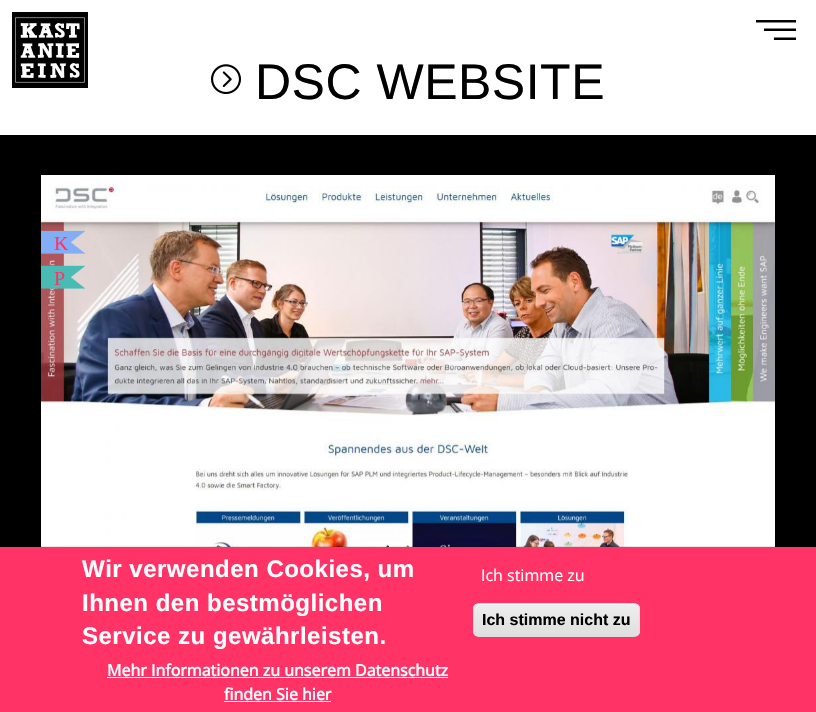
#include "include/core/SkBlurTypes.h"
#include "include/core/SkCanvas.h"
#include "include/core/SkData.h"
#include "include/core/SkFont.h"
#include "include/core/SkFontMgr.h"
#include "include/core/SkImage.h"
#include "include/core/SkMaskFilter.h"
#include "include/core/SkPaint.h"
#include "include/core/SkPathBuilder.h"
#include "include/core/SkTextBlob.h"
#include "include/effects/SkDashPathEffect.h"
#include "include/effects/SkGradientShader.h"
#include "include/utils/SkParsePath.h"

extern sk_sp<SkFontMgr> fontMgr;

void draw(SkCanvas* canvas) {
    SkPaint p;
    p.setAntiAlias(true);
    auto font = [&](const char* family, int weight, float size, bool italic = false) {
        SkFontStyle style(weight, SkFontStyle::kNormal_Width,
            italic ? SkFontStyle::kItalic_Slant : SkFontStyle::kUpright_Slant);
        SkFont result(fontMgr->matchFamilyStyle(family, style), size);
        result.setSubpixel(true);
        return result;
    };
    auto drawTracked = [&](const char* s, float x, float y, const SkFont& font, const SkPaint& ink, float letter, float word) {
        std::vector<SkGlyphID> glyphs(font.countText(s, strlen(s), SkTextEncoding::kUTF8));
        std::vector<float> xs(glyphs.size());
        font.textToGlyphs(s, strlen(s), SkTextEncoding::kUTF8, glyphs);
        font.getXPos(glyphs, xs, x);
        float extra = 0;
        for (size_t i = 0; i < glyphs.size(); i++) {
            xs[i] += extra;
            extra += letter + word * (glyphs[i] == font.unicharToGlyph(' '));
        }
        canvas->drawTextBlob(SkTextBlob::MakeFromPosHGlyphs(glyphs, xs, y, font), 0, 0, ink);
    };
    auto drawPhoto = [&](const char* path, float l, float t, float r, float b) {
        auto image = SkImages::DeferredFromEncodedData(SkData::MakeFromFileName(path));
        canvas->drawImageRect(image, SkRect::MakeLTRB(l, t, r, b), SkSamplingOptions());
    };
    canvas->clear(0xFF000000);
    p.setColor(0xFFFFFFFF);
    canvas->drawRect(SkRect::MakeLTRB(0, 0, 816, 135), p);
    drawPhoto("media/1.png", 756, 20, 796, 40);
    drawPhoto("media/2.png", 12, 12, 88, 88);
    drawPhoto("media/3.png", 211, 64, 241, 94);
    auto font1 = font("Liberation Sans", 400, 50);
    p.setColor(0xFF000000);
    drawTracked("DSC WEBSITE", 255, 99, font1, p, 0.5f, 0);
    drawPhoto("media/6.png", 41, 175, 775, 547);
    drawPhoto("media/4.png", 41, 230, 86, 254);
    auto font2 = font("Liberation Serif", 400, 20);
    p.setColor(0xFFFF3366);
    drawTracked("K", 54, 250, font2, p, 0.5f, 0);
    drawPhoto("media/5.png", 41, 265, 85, 289);
    drawTracked("P", 54, 285, font2, p, 0.5f, 0);
    auto font3 = font("Liberation Serif", 400, 10);
    p.setColor(0xFF282828);
    canvas->drawString("•", 386, 550, font3, p);
    p.setColor(0xFF777776);
    canvas->drawString("•", 406, 550, font3, p);
    p.setColor(0xFFFF3366);
    canvas->drawRect(SkRect::MakeLTRB(0, 547, 816, 712), p);
    auto font4 = font("Liberation Sans", 700, 24);
    p.setColor(0xFFFFFFFF);
    {
        const struct { const char* s; float x, y; } items[] = {
            {"Wir verwenden Cookies, um", 82, 577},
            {"Ihnen den bestmöglichen", 82, 611},
            {"Service zu gewährleisten.", 82, 644},
        };
        for (auto [s, x, y] : items) {
            drawTracked(s, x, y, font4, p, 0.5f, 0);
        }
    }
    auto font5 = font("Open Sans", 700, 16);
    canvas->drawString("Mehr Informationen zu unserem Datenschutz", 107, 676, font5, p);
    canvas->drawRect(SkRect::MakeLTRB(107, 677, 448, 678), p);
    canvas->drawString("finden Sie hier", 224, 700, font5, p);
    canvas->drawRect(SkRect::MakeLTRB(224, 701, 331, 702), p);
    auto font6 = font("Open Sans", 400, 16);
    canvas->drawString("Ich stimme zu", 481, 581, font6, p);
    canvas->save();
    canvas->clipPath(SkPathBuilder().moveTo(479, 603).lineTo(634, 603).cubicTo(637.5f, 603, 640, 605.5f, 640, 609).lineTo(640, 631).cubicTo(640, 634.5f, 637.5f, 637, 634, 637).lineTo(479, 637).cubicTo(475.5f, 637, 473, 634.5f, 473, 631).lineTo(473, 609).cubicTo(473, 605.5f, 475.5f, 603, 479, 603).close().detach(), true);
    {
        const SkColor colors[] = {0xFFEDEDED, 0xFFDFDFDF};
        const float stops[] = {0.05f, 1};
        const SkPoint ends[] = {{557, 604}, {557, 636}};
        p.setShader(SkGradientShader::MakeLinear(ends, colors, stops, 2, SkTileMode::kClamp));
        p.setAlpha(255);
    }
    canvas->drawRect(SkRect::MakeLTRB(473, 604, 640, 636), p);
    canvas->restore();
    p.setShader(nullptr);
    p.setColor(0xFFFFFFFF);
    canvas->drawPath(SkPathBuilder().moveTo(479, 605).lineTo(634, 605).cubicTo(637, 605, 639, 607, 639, 610).lineTo(639, 609).cubicTo(639, 606, 637, 604, 634, 604).lineTo(479, 604).cubicTo(476, 604, 474, 606, 474, 609).lineTo(474, 610).cubicTo(474, 607, 476, 605, 479, 605).close().detach(), p);
    p.setStyle(SkPaint::kStroke_Style);
    p.setStrokeWidth(1);
    p.setColor(0xFFDCDCDC);
    canvas->drawRoundRect(SkRect::MakeLTRB(473.5f, 603.5f, 639.5f, 636.5f), 5.5f, 5.5f, p);
    auto font7 = font("Liberation Sans", 700, 16);
    p.setStyle(SkPaint::kFill_Style);
    p.setColor(0xFF000000);
    canvas->drawString("Ich stimme nicht zu", 482, 625, font7, p);
}
